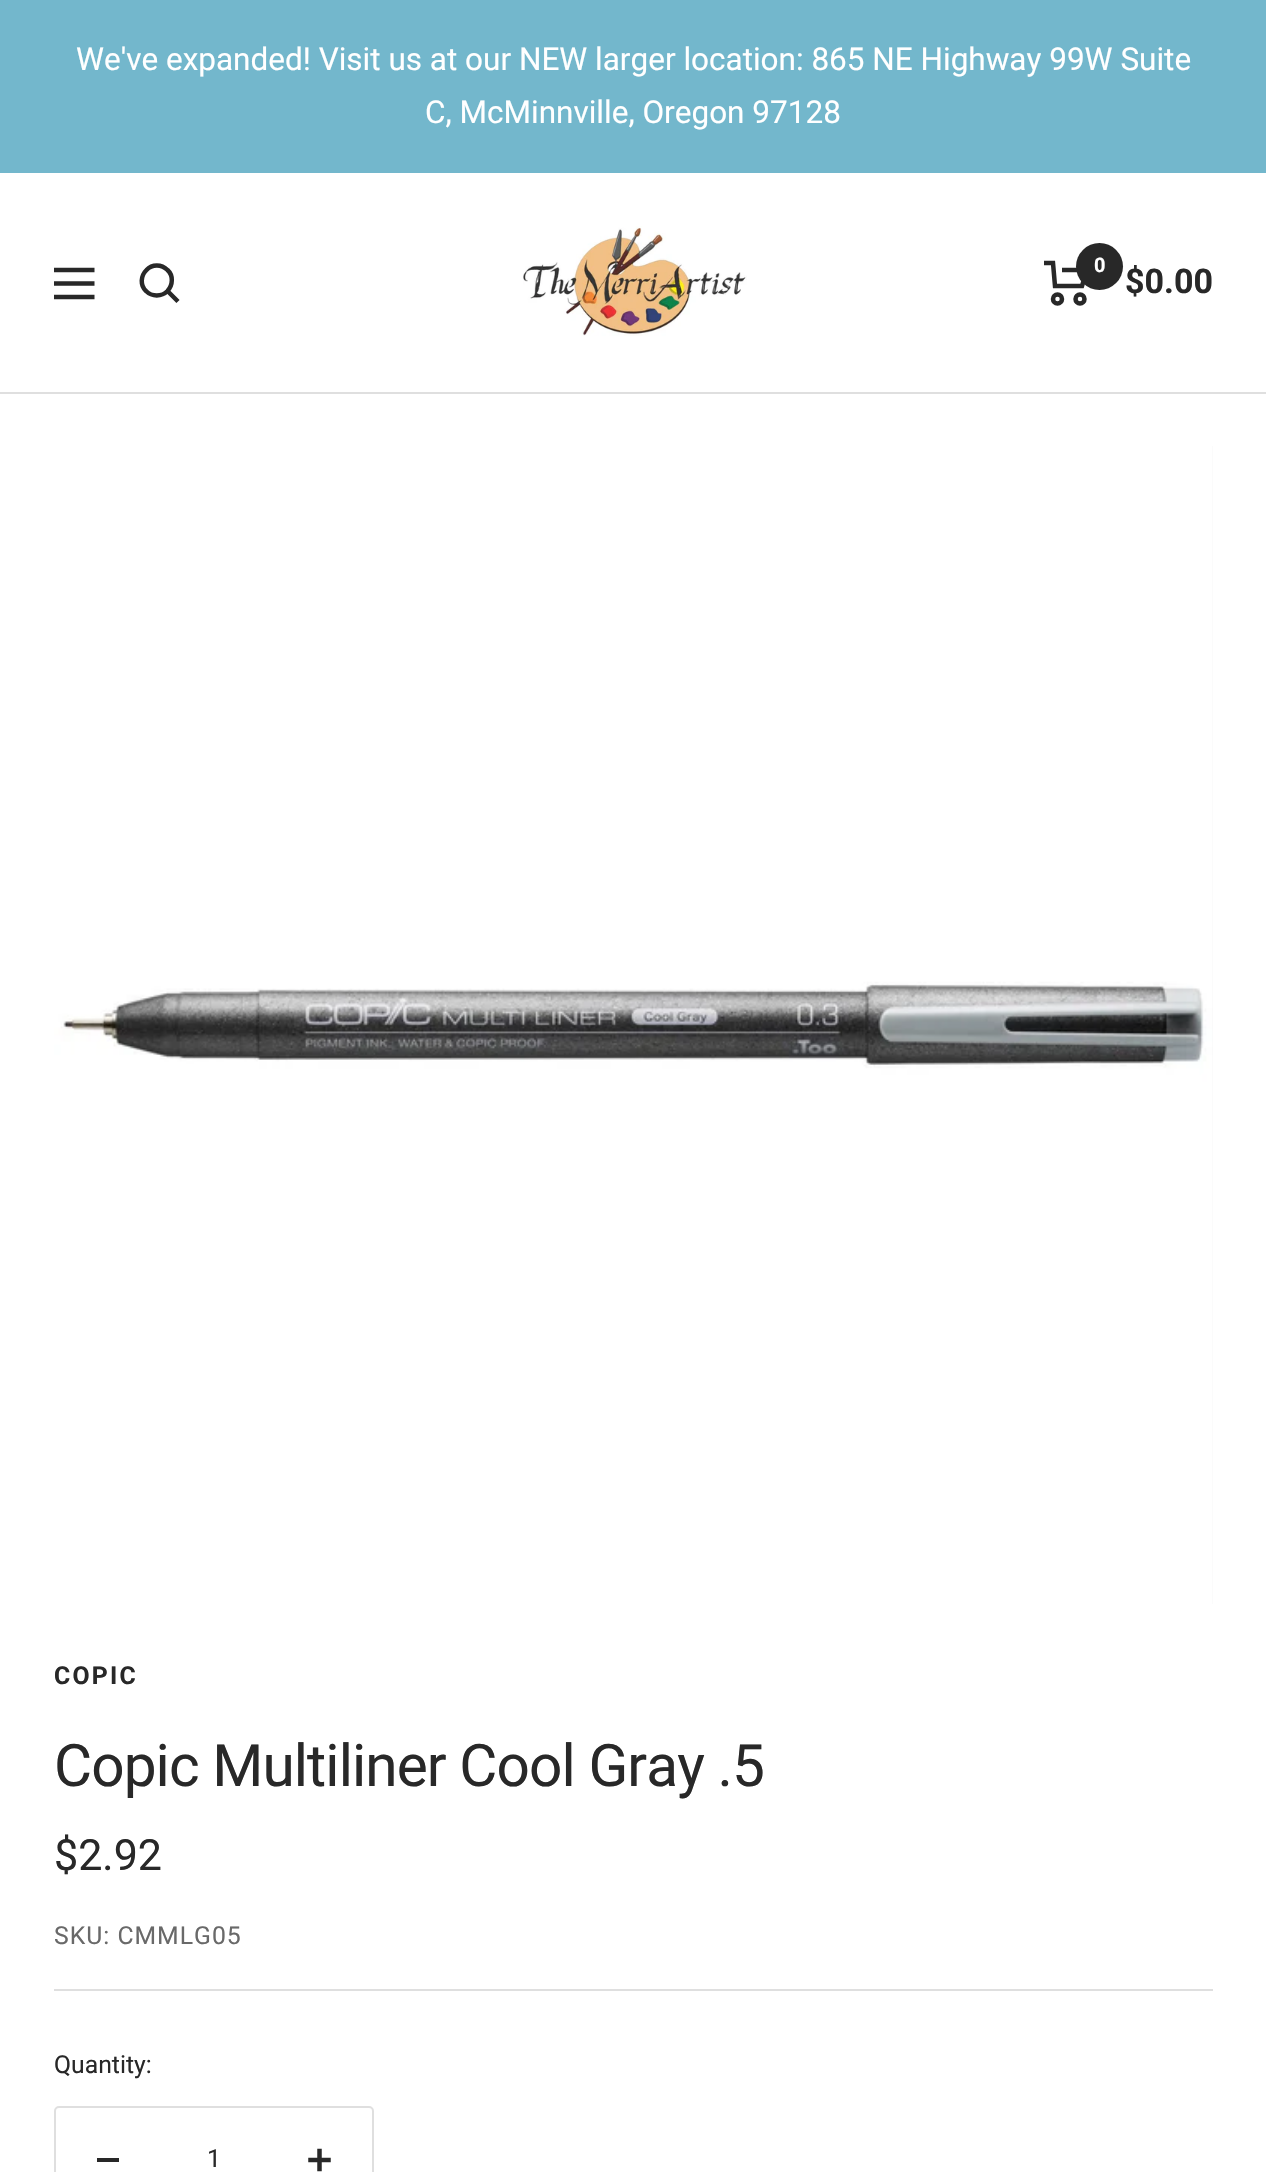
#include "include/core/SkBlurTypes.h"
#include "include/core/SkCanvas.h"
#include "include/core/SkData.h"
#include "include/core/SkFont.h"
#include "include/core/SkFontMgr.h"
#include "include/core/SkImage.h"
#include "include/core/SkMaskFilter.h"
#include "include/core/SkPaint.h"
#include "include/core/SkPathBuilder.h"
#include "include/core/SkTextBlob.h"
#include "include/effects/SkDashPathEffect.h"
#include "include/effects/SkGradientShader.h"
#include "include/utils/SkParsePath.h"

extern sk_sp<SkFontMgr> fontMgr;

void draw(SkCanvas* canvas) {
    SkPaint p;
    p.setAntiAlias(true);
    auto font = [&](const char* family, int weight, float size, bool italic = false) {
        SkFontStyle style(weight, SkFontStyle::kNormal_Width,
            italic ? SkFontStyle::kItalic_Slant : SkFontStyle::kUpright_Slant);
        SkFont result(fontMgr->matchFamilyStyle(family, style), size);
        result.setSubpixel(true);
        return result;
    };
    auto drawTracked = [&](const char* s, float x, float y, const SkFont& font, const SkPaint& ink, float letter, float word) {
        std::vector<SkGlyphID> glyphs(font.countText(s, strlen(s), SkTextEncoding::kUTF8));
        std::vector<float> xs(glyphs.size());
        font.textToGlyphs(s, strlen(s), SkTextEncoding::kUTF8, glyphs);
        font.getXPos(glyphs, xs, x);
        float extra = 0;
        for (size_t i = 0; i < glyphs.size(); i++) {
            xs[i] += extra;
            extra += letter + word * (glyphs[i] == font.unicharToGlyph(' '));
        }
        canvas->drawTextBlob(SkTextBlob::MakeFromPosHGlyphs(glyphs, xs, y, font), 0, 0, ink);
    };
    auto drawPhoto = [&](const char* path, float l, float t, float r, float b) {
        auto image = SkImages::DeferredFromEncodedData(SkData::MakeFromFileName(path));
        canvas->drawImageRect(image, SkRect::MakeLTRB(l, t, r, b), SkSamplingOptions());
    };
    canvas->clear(0xFFFFFFFF);
    p.setColor(0xFF73B7CC);
    canvas->drawRect(SkRect::MakeLTRB(0, 0, 1266, 173), p);
    auto font1 = font("Roboto", 400, 31.5f);
    p.setColor(0xFFFFFFFF);
    canvas->drawString("We've expanded! Visit us at our NEW larger location: 865 NE Highway 99W Suite", 76, 70, font1, p);
    canvas->drawString("C, McMinnville, Oregon 97128", 425, 123, font1, p);
    p.setColor(0xFFDFDFDF);
    canvas->drawPath(SkPathBuilder().moveTo(0, 392).lineTo(0, 394).lineTo(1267, 394).lineTo(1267, 176).lineTo(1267, 392).close().detach(), p);
    p.setStyle(SkPaint::kStroke_Style);
    p.setStrokeWidth(4.5f);
    p.setColor(0xFF282828);
    canvas->drawPath(SkPathBuilder().moveTo(54, 270).lineTo(94.5f, 270).moveTo(54, 297).lineTo(94.5f, 297).close().moveTo(54, 283.5f).lineTo(94.5f, 283.5f).close().detach(), p);
    canvas->drawPath(SkPathBuilder().moveTo(167.5f, 291).cubicTo(173, 285, 173.5f, 275.5f, 167.5f, 270).cubicTo(161.5f, 264, 152, 264, 146.5f, 270).cubicTo(140.5f, 276, 140, 285.5f, 146, 291).cubicTo(152, 297, 161.5f, 297, 167.5f, 291).close().moveTo(167.5f, 291).lineTo(178, 301.5f).detach(), p);
    drawPhoto("media/1.png", 523, 226, 747, 336);
    canvas->drawPath(SkPathBuilder().moveTo(1044, 263).lineTo(1053, 263).lineTo(1055, 286).lineTo(1082, 286).lineTo(1087, 270).lineTo(1062, 270).detach(), p);
    canvas->drawCircle(1057.5f, 299, 4.5f, p);
    canvas->drawCircle(1080, 299, 4.5f, p);
    p.setStyle(SkPaint::kFill_Style);
    canvas->drawCircle(1099.5f, 266.5f, 23.5f, p);
    auto font2 = font("Roboto", 700, 20);
    p.setColor(0xFFFFFFFF);
    canvas->drawString("0", 1094, 272, font2, p);
    auto font3 = font("Roboto", 700, 34);
    p.setColor(0xFF282828);
    canvas->drawString("$0.00", 1125, 293, font3, p);
    p.setColor(0xFFF5F5F5);
    canvas->drawRect(SkRect::MakeLTRB(1212, 446, 1213, 1604), p);
    drawPhoto("media/2.png", 54, 446, 1213, 1604);
    p.setColor(0xFFDFDFDF);
    canvas->drawRect(SkRect::MakeLTRB(54, 1989, 1213, 1991), p);
    auto font4 = font("Roboto", 700, 24.75f);
    p.setColor(0xFF282828);
    drawTracked("COPIC", 54, 1684, font4, p, 2.25f, 0);
    auto font5 = font("Roboto", 400, 58.5f);
    drawTracked("Copic Multiliner Cool Gray .5", 54, 1786, font5, p, -0.9f, 0);
    auto font6 = font("Roboto", 400, 43);
    canvas->drawString("$2.92", 54, 1870, font6, p);
    auto font7 = font("Roboto", 400, 24.75f);
    p.setColor(0xFF696969);
    drawTracked("SKU: CMMLG05", 54, 1944, font7, p, 1, 0);
    p.setColor(0xFF282828);
    canvas->drawString("Quantity:", 54, 2073, font7, p);
    p.setStyle(SkPaint::kStroke_Style);
    p.setStrokeWidth(2);
    p.setColor(0xFFDFDFDF);
    canvas->drawRoundRect(SkRect::MakeLTRB(55, 2107, 373, 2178), 4, 4, p);
    p.setStyle(SkPaint::kFill_Style);
    p.setColor(0xFF282828);
    canvas->drawRect(SkRect::MakeLTRB(97, 2158, 119, 2162), p);
    canvas->drawString("1", 207, 2167, font7, p);
    drawPhoto("media/3.png", 308, 2148, 331, 2172);
}
